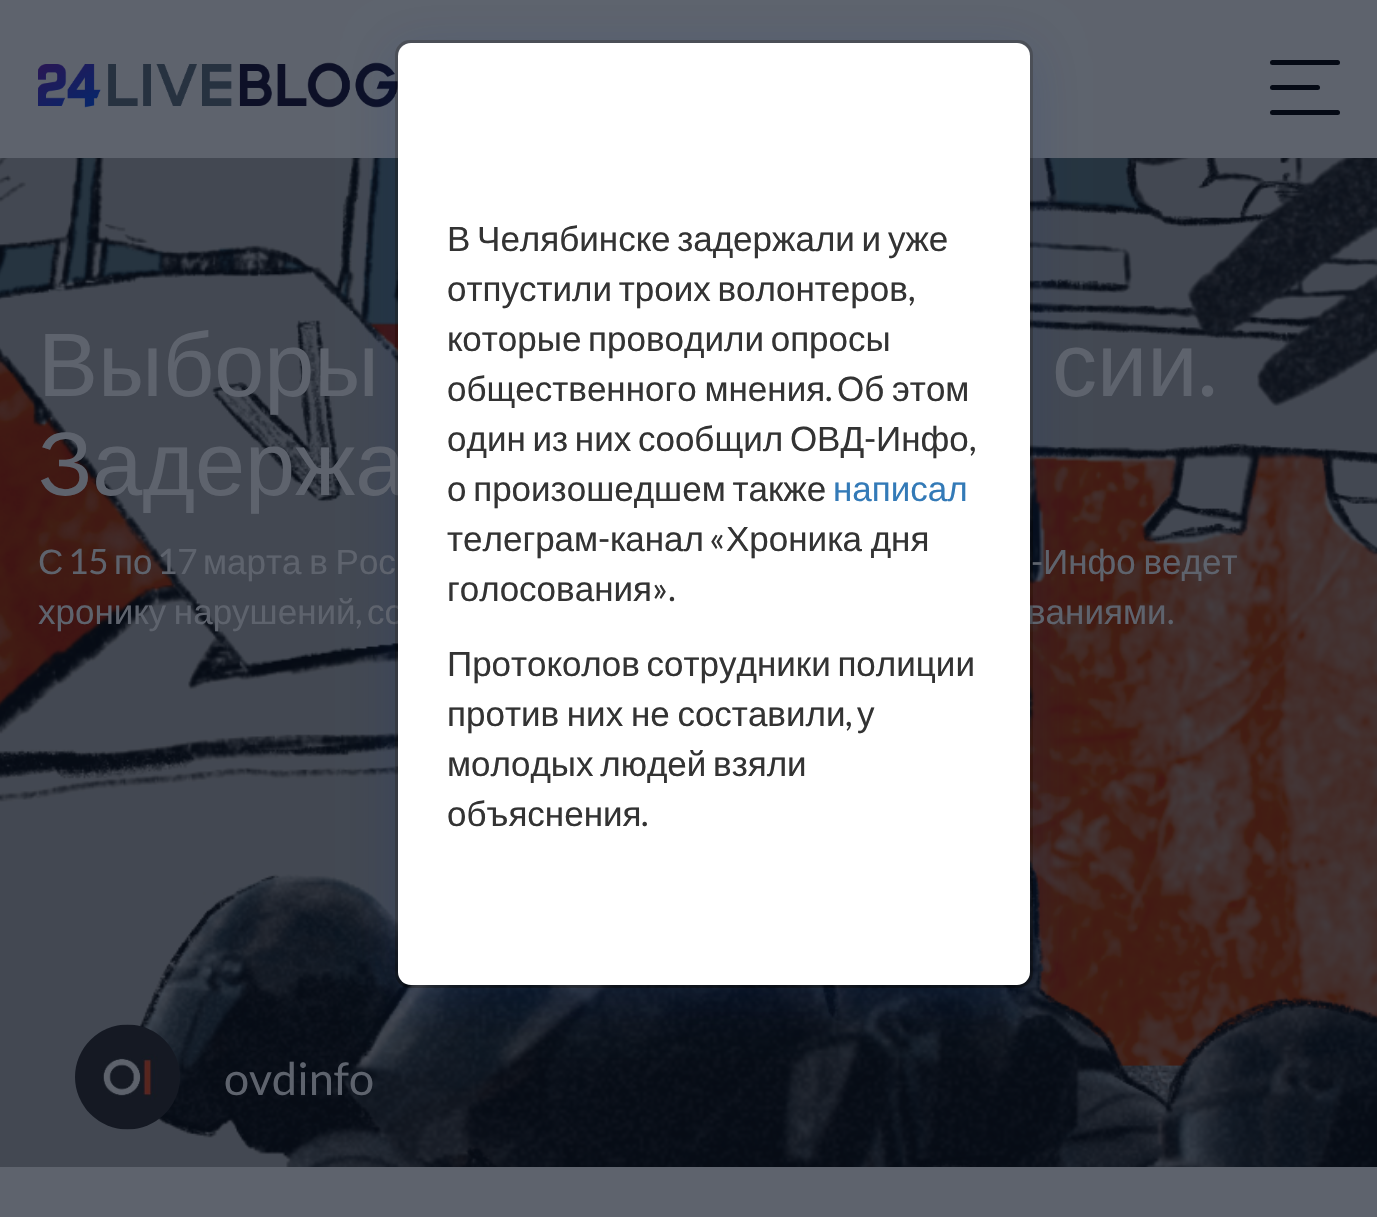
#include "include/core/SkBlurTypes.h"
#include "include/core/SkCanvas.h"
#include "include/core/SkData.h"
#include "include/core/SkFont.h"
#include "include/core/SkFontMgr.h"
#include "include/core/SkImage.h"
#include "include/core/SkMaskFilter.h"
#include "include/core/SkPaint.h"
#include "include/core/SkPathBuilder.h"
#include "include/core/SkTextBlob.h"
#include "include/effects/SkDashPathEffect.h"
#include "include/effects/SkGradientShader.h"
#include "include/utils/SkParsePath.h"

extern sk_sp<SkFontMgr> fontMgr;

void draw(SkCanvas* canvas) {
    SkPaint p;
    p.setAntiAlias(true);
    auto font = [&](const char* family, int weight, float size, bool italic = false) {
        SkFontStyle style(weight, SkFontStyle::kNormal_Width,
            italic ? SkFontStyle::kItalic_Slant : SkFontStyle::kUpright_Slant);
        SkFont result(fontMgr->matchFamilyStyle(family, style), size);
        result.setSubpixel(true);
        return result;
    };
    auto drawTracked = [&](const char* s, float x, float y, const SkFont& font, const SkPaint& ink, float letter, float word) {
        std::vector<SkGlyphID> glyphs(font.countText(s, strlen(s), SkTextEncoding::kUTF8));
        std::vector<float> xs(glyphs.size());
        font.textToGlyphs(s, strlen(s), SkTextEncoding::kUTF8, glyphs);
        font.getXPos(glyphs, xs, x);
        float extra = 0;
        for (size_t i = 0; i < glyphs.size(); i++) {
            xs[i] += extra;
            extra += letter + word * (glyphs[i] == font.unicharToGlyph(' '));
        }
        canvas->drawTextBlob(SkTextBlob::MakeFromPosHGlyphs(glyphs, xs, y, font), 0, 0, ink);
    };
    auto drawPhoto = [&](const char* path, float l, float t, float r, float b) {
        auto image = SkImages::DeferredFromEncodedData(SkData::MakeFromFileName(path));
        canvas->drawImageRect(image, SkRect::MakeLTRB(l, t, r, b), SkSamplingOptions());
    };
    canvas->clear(0xFF5E636D);
    drawPhoto("media/1.png", 38, 62, 398, 108);
    p.setColor(0xFF050A15);
    canvas->drawRoundRect(SkRect::MakeLTRB(1270, 60, 1340, 65), 2.5f, 2.5f, p);
    canvas->drawRoundRect(SkRect::MakeLTRB(1270, 85, 1320, 90), 2.5f, 2.5f, p);
    canvas->drawRoundRect(SkRect::MakeLTRB(1270, 110, 1340, 115), 2.5f, 2.5f, p);
    drawPhoto("media/2.png", 0, 158, 1377, 1167);
    canvas->save();
    canvas->clipPath(SkPathBuilder(SkPathFillType::kEvenOdd).moveTo(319, 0).lineTo(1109, 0).lineTo(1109, 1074).lineTo(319, 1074).close().moveTo(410, 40).lineTo(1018, 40).cubicTo(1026.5f, 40, 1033, 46.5f, 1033, 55).lineTo(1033, 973).cubicTo(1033, 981.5f, 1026.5f, 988, 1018, 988).lineTo(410, 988).cubicTo(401.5f, 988, 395, 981.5f, 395, 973).lineTo(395, 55).cubicTo(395, 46.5f, 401.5f, 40, 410, 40).close().detach(), true);
    p.setColor(0x26003090);
    p.setMaskFilter(SkMaskFilter::MakeBlur(kNormal_SkBlurStyle, 25));
    canvas->drawRoundRect(SkRect::MakeLTRB(395, 50, 1033, 998), 15, 15, p);
    p.setMaskFilter(nullptr);
    canvas->restore();
    auto font1 = font("Liberation Sans", 400, 90);
    p.setColor(0xFF5E636D);
    drawTracked("Задержа", 38, 495, font1, p, 0, -8);
    auto font2 = font("Liberation Sans", 400, 35);
    drawTracked("со", 367, 624, font2, p, 0, -2);
    drawTracked("ваниями", 1027, 624, font2, p, 0, -2);
    p.setColor(0xFFFFFFFF);
    canvas->drawRoundRect(SkRect::MakeLTRB(398, 43, 1030, 985), 13, 13, p);
    p.setColor(0xFF5E636D);
    drawTracked("марта в Рос", 203, 574, font2, p, 0, -2);
    auto font3 = font("Lato", 400, 35);
    canvas->drawString("-", 1031, 574, font3, p);
    p.setStyle(SkPaint::kStroke_Style);
    p.setStrokeWidth(3);
    p.setColor(0x33000000);
    canvas->drawRoundRect(SkRect::MakeLTRB(396.5f, 41.5f, 1031.5f, 986.5f), 13.5f, 13.5f, p);
    p.setStyle(SkPaint::kFill_Style);
    p.setColor(0xFF333333);
    drawTracked("В Челябинске задержали и уже", 447, 251, font2, p, 0, -3);
    drawTracked("отпустили троих волонтеров", 447, 301, font2, p, 0, -3);
    canvas->drawString(",", 908, 301, font3, p);
    drawTracked("которые проводили опросы", 447, 351, font2, p, 0, -3);
    drawTracked("общественного мнения", 447, 401, font2, p, 0, -2);
    canvas->drawString(".", 825, 401, font3, p);
    drawTracked("Об этом", 837, 401, font2, p, 0, -2);
    drawTracked("один из них сообщил ОВД", 447, 451, font2, p, 0, -3);
    canvas->drawString("-", 864, 451, font3, p);
    canvas->drawString("Инфо", 876, 451, font2, p);
    canvas->drawString(",", 969, 451, font3, p);
    drawTracked("о произошедшем также", 447, 501, font2, p, 0, -3);
    p.setColor(0xFF337AB7);
    canvas->drawString("написал", 833, 501, font2, p);
    p.setColor(0xFF333333);
    canvas->drawString("телеграм", 447, 551, font2, p);
    canvas->drawString("-", 598, 551, font3, p);
    canvas->drawString("канал", 610, 551, font2, p);
    canvas->drawString("«", 709, 551, font3, p);
    drawTracked("Хроника дня", 726, 551, font2, p, 0, -1);
    canvas->drawString("голосования", 447, 601, font2, p);
    canvas->drawString("».", 652, 601, font3, p);
    drawTracked("Протоколов сотрудники полиции", 447, 676, font2, p, 0, -3);
    drawTracked("против них не составили", 447, 726, font2, p, 0, -2);
    canvas->drawString(",", 845, 726, font3, p);
    canvas->drawString("у", 857, 726, font2, p);
    drawTracked("молодых людей взяли", 447, 776, font2, p, 0, -3);
    canvas->drawString("объяснения", 447, 826, font2, p);
    canvas->drawString(".", 641, 826, font3, p);
    p.setColor(0xFF5E636D);
    drawTracked("Выборы", 38, 396, font1, p, 0, -8);
    drawTracked("сии", 1052, 396, font1, p, 0, -8);
    auto font4 = font("Lato", 400, 90);
    canvas->drawString(".", 1198, 396, font4, p);
    canvas->drawString("С", 38, 574, font2, p);
    canvas->drawString("15", 68, 574, font3, p);
    canvas->drawString("по", 114, 574, font2, p);
    canvas->drawString("17", 157, 574, font3, p);
    drawTracked("Инфо ведет", 1043, 574, font2, p, 0, -2);
    drawTracked("хронику нарушений", 38, 624, font2, p, 0, -2);
    canvas->drawString(",", 355, 624, font3, p);
    canvas->drawString(".", 1167, 624, font3, p);
    drawPhoto("media/3.png", 75, 1024, 180, 1130);
    auto font5 = font("Lato", 400, 45);
    canvas->drawString("ovdinfo", 224, 1095, font5, p);
}
